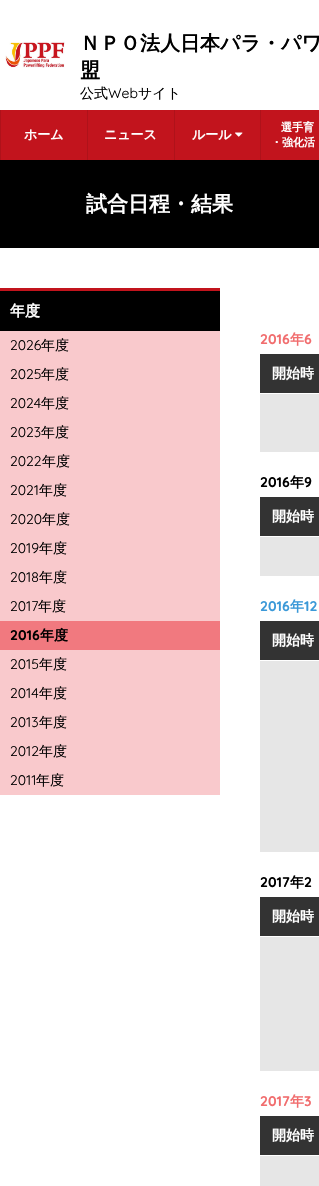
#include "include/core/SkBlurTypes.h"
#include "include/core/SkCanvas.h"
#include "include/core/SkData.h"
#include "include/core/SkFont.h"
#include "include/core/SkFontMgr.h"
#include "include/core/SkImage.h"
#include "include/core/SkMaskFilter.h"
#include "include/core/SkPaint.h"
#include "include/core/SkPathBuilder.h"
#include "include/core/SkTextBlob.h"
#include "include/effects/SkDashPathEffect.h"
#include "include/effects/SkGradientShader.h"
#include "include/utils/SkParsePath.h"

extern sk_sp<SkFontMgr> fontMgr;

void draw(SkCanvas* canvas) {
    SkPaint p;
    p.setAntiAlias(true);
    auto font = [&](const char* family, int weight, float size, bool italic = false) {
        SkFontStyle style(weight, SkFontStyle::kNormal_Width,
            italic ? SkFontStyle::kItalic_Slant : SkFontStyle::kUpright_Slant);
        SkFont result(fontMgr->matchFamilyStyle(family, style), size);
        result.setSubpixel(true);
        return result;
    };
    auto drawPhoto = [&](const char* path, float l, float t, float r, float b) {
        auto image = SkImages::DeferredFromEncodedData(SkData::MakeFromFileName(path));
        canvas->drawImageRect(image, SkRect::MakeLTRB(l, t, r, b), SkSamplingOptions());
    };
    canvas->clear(0xFFFFFFFF);
    drawPhoto("media/1.png", 5, 41, 65, 68);
    auto font1 = font("WenQuanYi Zen Hei", 700, 20);
    p.setColor(0xFF000000);
    canvas->drawString("ＮＰＯ法人日本パラ・パワ", 80, 50, font1, p);
    canvas->drawString("盟", 80, 77, font1, p);
    auto font2 = font("WenQuanYi Zen Hei", 500, 14);
    canvas->drawString("公式", 80, 98, font2, p);
    auto font3 = font("Quicksand", 400, 14);
    canvas->drawString("Web", 108, 98, font3, p);
    canvas->drawString("サイト", 138, 98, font2, p);
    p.setColor(0xFFC2141D);
    canvas->drawRect(SkRect::MakeLTRB(1, 110, 319, 160), p);
    p.setColor(0xFFAF121A);
    canvas->drawRect(SkRect::MakeLTRB(0, 110, 1, 160), p);
    auto font4 = font("WenQuanYi Zen Hei", 700, 13);
    p.setColor(0xFFFFFFFF);
    canvas->drawString("ホーム", 24, 139, font4, p);
    p.setColor(0xFFAF121A);
    canvas->drawRect(SkRect::MakeLTRB(87, 110, 88, 160), p);
    p.setColor(0xFFFFFFFF);
    canvas->drawString("ニュース", 104, 139, font4, p);
    p.setColor(0xFFAF121A);
    canvas->drawRect(SkRect::MakeLTRB(174, 110, 175, 160), p);
    p.setColor(0xFFFFFFFF);
    canvas->drawString("ルール", 192, 139, font4, p);
    drawPhoto("media/2.png", 235, 132, 243, 137);
    p.setColor(0xFFAF121A);
    canvas->drawRect(SkRect::MakeLTRB(260, 110, 261, 160), p);
    auto font5 = font("WenQuanYi Zen Hei", 700, 11);
    p.setColor(0xFFFFFFFF);
    canvas->drawString("選手育", 281, 131, font5, p);
    canvas->drawString("・強化活", 271, 146, font5, p);
    p.setColor(0xFF000000);
    canvas->drawRect(SkRect::MakeLTRB(0, 160, 319, 248), p);
    auto font6 = font("WenQuanYi Zen Hei", 700, 21);
    p.setColor(0xFFFFFFFF);
    canvas->drawString("試合日程・結果", 86, 211, font6, p);
    p.setColor(0xFFC2141D);
    canvas->drawRect(SkRect::MakeLTRB(0, 288, 220, 291), p);
    p.setColor(0xFF000000);
    canvas->drawRect(SkRect::MakeLTRB(0, 291, 220, 331), p);
    auto font7 = font("WenQuanYi Zen Hei", 700, 15);
    p.setColor(0xFFFFFFFF);
    canvas->drawString("年度", 10, 316, font7, p);
    p.setColor(0xFFF9C9CC);
    canvas->drawRect(SkRect::MakeLTRB(0, 331, 220, 795), p);
    p.setColor(0xFF000000);
    canvas->drawString("2026", 10, 350, font3, p);
    canvas->drawString("年度", 41, 350, font2, p);
    canvas->drawString("2025", 10, 379, font3, p);
    canvas->drawString("年度", 41, 379, font2, p);
    canvas->drawString("2024", 10, 408, font3, p);
    canvas->drawString("年度", 41, 408, font2, p);
    canvas->drawString("2023", 10, 437, font3, p);
    canvas->drawString("年度", 41, 437, font2, p);
    canvas->drawString("2022", 10, 466, font3, p);
    canvas->drawString("年度", 42, 466, font2, p);
    canvas->drawString("2021", 10, 495, font3, p);
    canvas->drawString("年度", 39, 495, font2, p);
    canvas->drawString("2020", 10, 524, font3, p);
    canvas->drawString("年度", 42, 524, font2, p);
    canvas->drawString("2019", 10, 553, font3, p);
    canvas->drawString("年度", 39, 553, font2, p);
    canvas->drawString("2018", 10, 582, font3, p);
    canvas->drawString("年度", 39, 582, font2, p);
    canvas->drawString("2017", 10, 611, font3, p);
    canvas->drawString("年度", 38, 611, font2, p);
    p.setColor(0xFFF1797F);
    canvas->drawRect(SkRect::MakeLTRB(0, 621, 220, 650), p);
    auto font8 = font("Quicksand", 700, 14);
    p.setColor(0xFF000000);
    canvas->drawString("2016", 10, 640, font8, p);
    auto font9 = font("WenQuanYi Zen Hei", 700, 14);
    canvas->drawString("年度", 40, 640, font9, p);
    canvas->drawString("2015", 10, 669, font3, p);
    canvas->drawString("年度", 39, 669, font2, p);
    canvas->drawString("2014", 10, 698, font3, p);
    canvas->drawString("年度", 39, 698, font2, p);
    canvas->drawString("2013", 10, 727, font3, p);
    canvas->drawString("年度", 39, 727, font2, p);
    canvas->drawString("2012", 10, 756, font3, p);
    canvas->drawString("年度", 39, 756, font2, p);
    canvas->drawString("2011", 10, 785, font3, p);
    canvas->drawString("年度", 36, 785, font2, p);
    p.setColor(0xFFF16D6E);
    canvas->drawString("2016", 260, 344, font8, p);
    canvas->drawString("年", 290, 344, font9, p);
    canvas->drawString("6", 304, 344, font8, p);
    p.setColor(0xFF333333);
    canvas->drawRect(SkRect::MakeLTRB(260, 354, 319, 393), p);
    p.setColor(0xFFFFFFFF);
    canvas->drawString("開始時", 272, 378, font9, p);
    p.setColor(0xFFE6E6E6);
    canvas->drawRect(SkRect::MakeLTRB(260, 394, 319, 452), p);
    p.setColor(0xFF000000);
    canvas->drawString("2016", 260, 487, font8, p);
    canvas->drawString("年", 290, 487, font9, p);
    canvas->drawString("9", 304, 487, font8, p);
    p.setColor(0xFF333333);
    canvas->drawRect(SkRect::MakeLTRB(260, 497, 319, 536), p);
    p.setColor(0xFFFFFFFF);
    canvas->drawString("開始時", 272, 521, font9, p);
    p.setColor(0xFFE6E6E6);
    canvas->drawRect(SkRect::MakeLTRB(260, 537, 319, 576), p);
    p.setColor(0xFF3B99D8);
    canvas->drawString("2016", 260, 611, font8, p);
    canvas->drawString("年", 290, 611, font9, p);
    canvas->drawString("12", 304, 611, font8, p);
    p.setColor(0xFF333333);
    canvas->drawRect(SkRect::MakeLTRB(260, 621, 319, 660), p);
    p.setColor(0xFFFFFFFF);
    canvas->drawString("開始時", 272, 645, font9, p);
    p.setColor(0xFFE6E6E6);
    canvas->drawRect(SkRect::MakeLTRB(260, 661, 319, 852), p);
    p.setColor(0xFF000000);
    canvas->drawString("2017", 260, 887, font8, p);
    canvas->drawString("年", 290, 887, font9, p);
    canvas->drawString("2", 304, 887, font8, p);
    p.setColor(0xFF333333);
    canvas->drawRect(SkRect::MakeLTRB(260, 897, 319, 936), p);
    p.setColor(0xFFFFFFFF);
    canvas->drawString("開始時", 272, 921, font9, p);
    p.setColor(0xFFE6E6E6);
    canvas->drawRect(SkRect::MakeLTRB(260, 937, 319, 1071), p);
    p.setColor(0xFFF16D6E);
    canvas->drawString("2017", 260, 1106, font8, p);
    canvas->drawString("年", 290, 1106, font9, p);
    canvas->drawString("3", 304, 1106, font8, p);
    p.setColor(0xFF333333);
    canvas->drawRect(SkRect::MakeLTRB(260, 1116, 319, 1155), p);
    p.setColor(0xFFFFFFFF);
    canvas->drawString("開始時", 272, 1140, font9, p);
    p.setColor(0xFFE6E6E6);
    canvas->drawRect(SkRect::MakeLTRB(260, 1156, 319, 1186), p);
}
